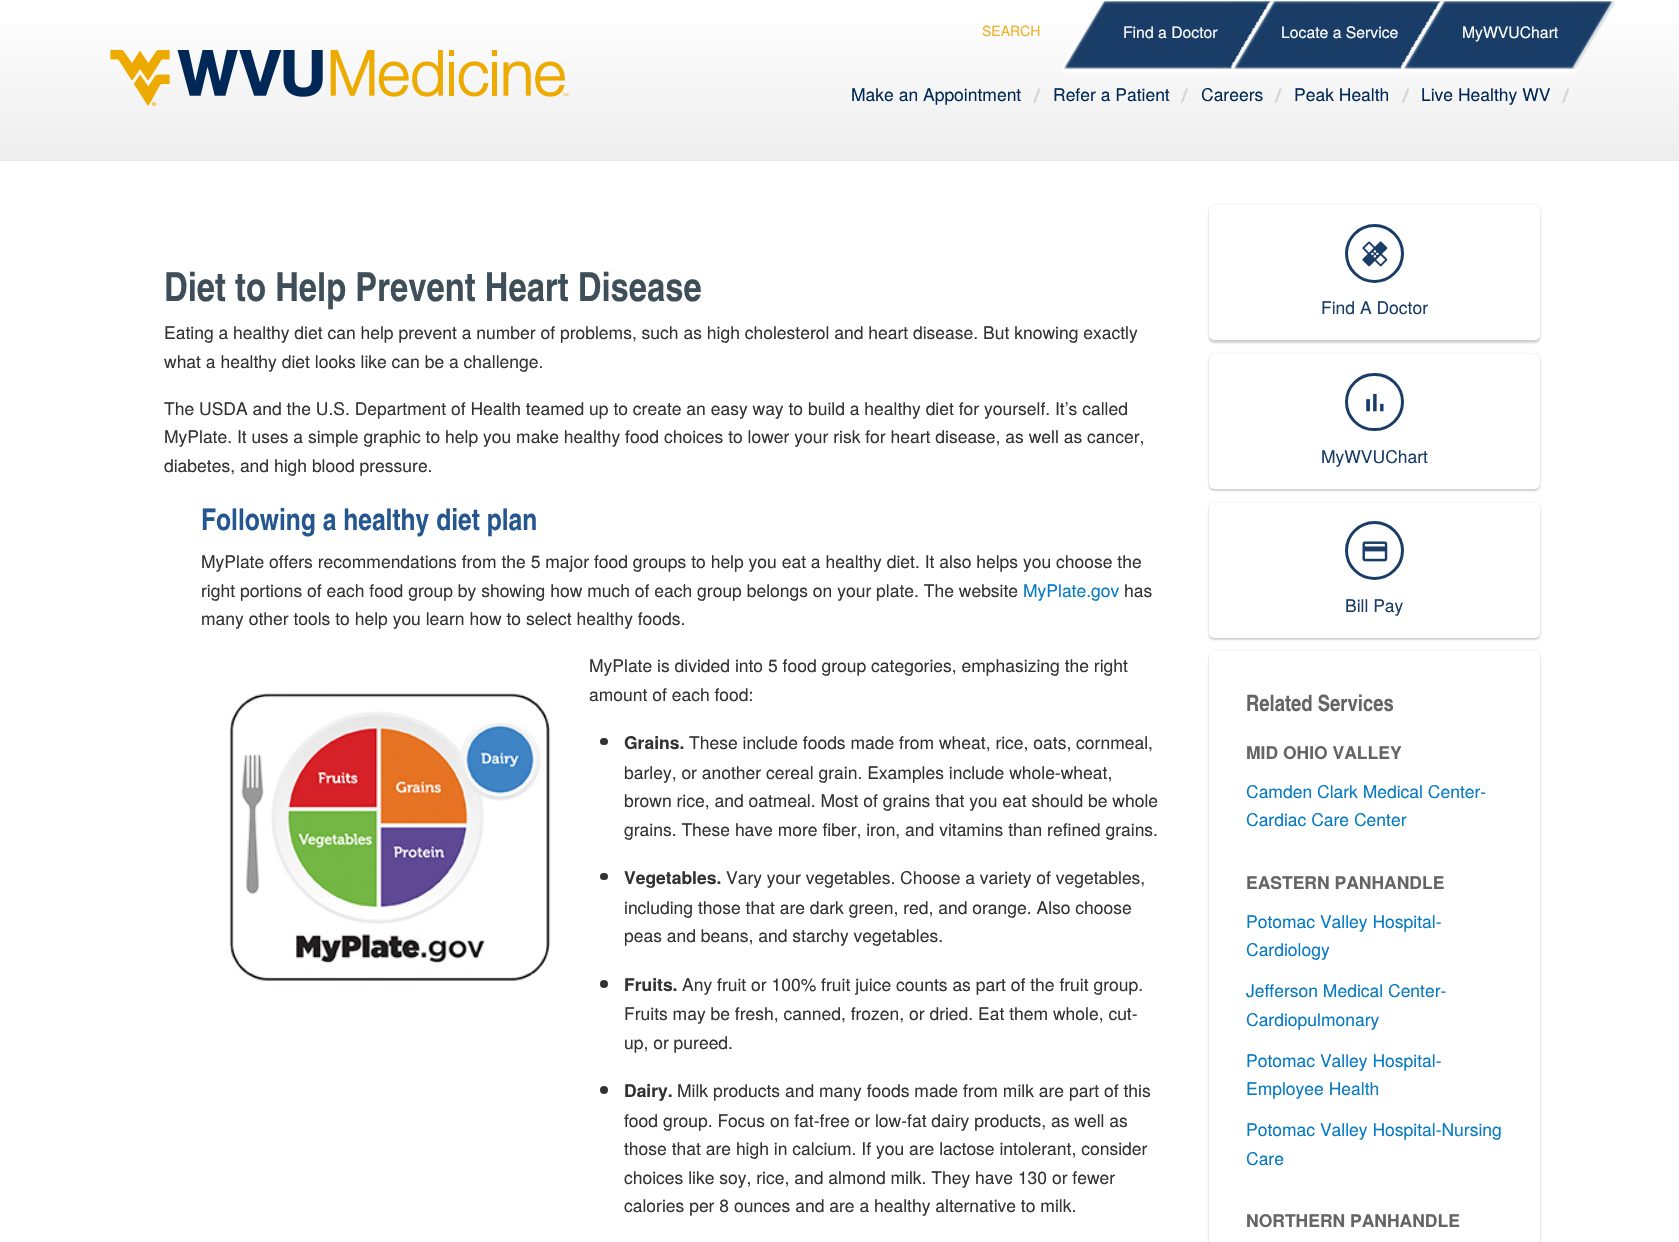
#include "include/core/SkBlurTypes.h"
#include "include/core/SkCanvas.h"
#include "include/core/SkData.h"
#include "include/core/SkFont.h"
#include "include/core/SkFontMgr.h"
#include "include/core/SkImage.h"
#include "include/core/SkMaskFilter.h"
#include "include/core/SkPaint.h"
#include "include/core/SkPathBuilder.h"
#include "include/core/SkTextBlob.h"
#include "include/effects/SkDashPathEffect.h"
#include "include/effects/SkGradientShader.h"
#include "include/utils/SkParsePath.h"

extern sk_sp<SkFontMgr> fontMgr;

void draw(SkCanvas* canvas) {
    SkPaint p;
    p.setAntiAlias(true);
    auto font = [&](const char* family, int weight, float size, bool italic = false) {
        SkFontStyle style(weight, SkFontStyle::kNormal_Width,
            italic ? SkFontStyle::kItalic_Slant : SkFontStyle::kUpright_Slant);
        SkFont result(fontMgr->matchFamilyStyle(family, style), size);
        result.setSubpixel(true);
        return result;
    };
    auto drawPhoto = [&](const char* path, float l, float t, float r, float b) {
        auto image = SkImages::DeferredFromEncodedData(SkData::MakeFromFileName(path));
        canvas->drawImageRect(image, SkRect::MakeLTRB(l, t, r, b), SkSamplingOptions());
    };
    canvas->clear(0xFFFFFFFF);
    {
        const SkColor colors[] = {0xFFFFFFFF, 0xFFEEEEEE};
        const float stops[] = {0, 1};
        const SkPoint ends[] = {{840, 0}, {840, 160}};
        p.setShader(SkGradientShader::MakeLinear(ends, colors, stops, 2, SkTileMode::kClamp));
        p.setAlpha(255);
    }
    canvas->drawRect(SkRect::MakeLTRB(0, 24, 1679, 160), p);
    p.setShader(nullptr);
    p.setColor(0xFFE7E7E7);
    canvas->drawRect(SkRect::MakeLTRB(0, 160, 1679, 161), p);
    auto font1 = font("TeX Gyre Heros", 400, 14);
    p.setColor(0xFFEFAF27);
    canvas->drawString("SEARCH", 982, 36, font1, p);
    drawPhoto("media/1.png", 1061, 1, 1276, 73);
    auto font2 = font("TeX Gyre Heros", 400, 15.75f);
    p.setColor(0xFFFFFFFF);
    canvas->drawString("Find a Doctor", 1123, 38, font2, p);
    drawPhoto("media/2.png", 1231, 1, 1446, 73);
    canvas->drawString("Locate a Service", 1281, 38, font2, p);
    drawPhoto("media/3.png", 1401, 1, 1616, 73);
    canvas->drawString("MyWVUChart", 1462, 38, font2, p);
    drawPhoto("media/4.png", 110, 49, 569, 107);
    drawPhoto("media/5.png", 1032, 87, 1041, 104);
    auto font3 = font("TeX Gyre Heros", 400, 17.5f);
    p.setColor(0xFF002857);
    canvas->drawString("Make an Appointment", 851, 101, font3, p);
    drawPhoto("media/6.png", 1180, 87, 1189, 104);
    canvas->drawString("Refer a Patient", 1053, 101, font3, p);
    drawPhoto("media/7.png", 1274, 87, 1282, 104);
    canvas->drawString("Careers", 1201, 101, font3, p);
    drawPhoto("media/8.png", 1401, 87, 1410, 104);
    canvas->drawString("Peak Health", 1294, 101, font3, p);
    drawPhoto("media/9.png", 1561, 87, 1570, 104);
    canvas->drawString("Live Healthy WV", 1421, 101, font3, p);
    auto font4 = font("TeX Gyre Heros Cn", 700, 40);
    p.setColor(0xFF3E4F5A);
    canvas->drawString("Diet to Help Prevent Heart Disease", 164, 301, font4, p);
    p.setColor(0xFF333333);
    {
        const struct { const char* s; float x, y; } items[] = {
            {"Eating a healthy diet can help prevent a number of problems, such as high cholesterol and heart disease. But knowing exactly", 164, 339},
            {"what a healthy diet looks like can be a challenge.", 164, 368},
            {"The USDA and the U.S. Department of Health teamed up to create an easy way to build a healthy diet for yourself. It’s called", 164, 415},
            {"MyPlate. It uses a simple graphic to help you make healthy food choices to lower your risk for heart disease, as well as cancer,", 164, 443},
            {"diabetes, and high blood pressure.", 164, 472},
        };
        for (auto [s, x, y] : items) {
            canvas->drawString(s, x, y, font3, p);
        }
    }
    auto font5 = font("TeX Gyre Heros Cn", 700, 30);
    p.setColor(0xFF245690);
    canvas->drawString("Following a healthy diet plan", 201, 530, font5, p);
    p.setColor(0xFF333333);
    canvas->drawString("MyPlate offers recommendations from the 5 major food groups to help you eat a healthy diet. It also helps you choose the", 201, 568, font3, p);
    canvas->drawString("right portions of each food group by showing how much of each group belongs on your plate. The website", 201, 597, font3, p);
    p.setColor(0xFF067AC3);
    canvas->drawString("MyPlate.gov", 1023, 597, font3, p);
    p.setColor(0xFF333333);
    {
        const struct { const char* s; float x, y; } items[] = {
            {"has", 1124, 597},
            {"many other tools to help you learn how to select healthy foods.", 201, 625},
            {"MyPlate is divided into 5 food group categories, emphasizing the right", 589, 672},
            {"amount of each food:", 589, 701},
        };
        for (auto [s, x, y] : items) {
            canvas->drawString(s, x, y, font3, p);
        }
    }
    drawPhoto("media/10.png", 229, 693, 551, 981);
    canvas->drawRoundRect(SkRect::MakeLTRB(600, 738, 608, 745), 3.5f, 3.5f, p);
    auto font6 = font("TeX Gyre Heros", 700, 17.5f);
    canvas->drawString("Grains.", 624, 749, font6, p);
    {
        const struct { const char* s; float x, y; } items[] = {
            {"These include foods made from wheat, rice, oats, cornmeal,", 689, 749},
            {"barley, or another cereal grain. Examples include whole-wheat,", 624, 779},
            {"brown rice, and oatmeal. Most of grains that you eat should be whole", 624, 807},
            {"grains. These have more fiber, iron, and vitamins than refined grains.", 624, 836},
        };
        for (auto [s, x, y] : items) {
            canvas->drawString(s, x, y, font3, p);
        }
    }
    canvas->drawRoundRect(SkRect::MakeLTRB(600, 873, 608, 880), 3.5f, 3.5f, p);
    canvas->drawString("Vegetables.", 624, 884, font6, p);
    {
        const struct { const char* s; float x, y; } items[] = {
            {"Vary your vegetables. Choose a variety of vegetables,", 726, 884},
            {"including those that are dark green, red, and orange. Also choose", 624, 914},
            {"peas and beans, and starchy vegetables.", 624, 942},
        };
        for (auto [s, x, y] : items) {
            canvas->drawString(s, x, y, font3, p);
        }
    }
    canvas->drawCircle(604, 984, 4, p);
    canvas->drawString("Fruits.", 624, 991, font6, p);
    {
        const struct { const char* s; float x, y; } items[] = {
            {"Any fruit or 100% fruit juice counts as part of the fruit group.", 682, 991},
            {"Fruits may be fresh, canned, frozen, or dried. Eat them whole, cut-", 624, 1020},
            {"up, or pureed.", 624, 1049},
        };
        for (auto [s, x, y] : items) {
            canvas->drawString(s, x, y, font3, p);
        }
    }
    canvas->drawCircle(604, 1090, 4, p);
    canvas->drawString("Dairy.", 624, 1097, font6, p);
    {
        const struct { const char* s; float x, y; } items[] = {
            {"Milk products and many foods made from milk are part of this", 677, 1097},
            {"food group. Focus on fat-free or low-fat dairy products, as well as", 624, 1127},
            {"those that are high in calcium. If you are lactose intolerant, consider", 624, 1155},
            {"choices like soy, rice, and almond milk. They have 130 or fewer", 624, 1184},
            {"calories per 8 ounces and are a healthy alternative to milk.", 624, 1212},
        };
        for (auto [s, x, y] : items) {
            canvas->drawString(s, x, y, font3, p);
        }
    }
    p.setColor(0x1F000000);
    p.setMaskFilter(SkMaskFilter::MakeBlur(kNormal_SkBlurStyle, 1));
    canvas->drawRoundRect(SkRect::MakeLTRB(1209, 205, 1540, 340), 5, 5, p);
    p.setMaskFilter(nullptr);
    p.setColor(0x29000000);
    p.setMaskFilter(SkMaskFilter::MakeBlur(kNormal_SkBlurStyle, 1));
    canvas->drawRoundRect(SkRect::MakeLTRB(1209, 208, 1540, 343), 5, 5, p);
    p.setMaskFilter(nullptr);
    p.setColor(0xFFFFFFFF);
    canvas->drawRoundRect(SkRect::MakeLTRB(1209, 205, 1540, 340), 5, 5, p);
    p.setStyle(SkPaint::kStroke_Style);
    p.setStrokeWidth(3);
    p.setColor(0xFF193D67);
    canvas->drawCircle(1374.5f, 253.5f, 28, p);
    drawPhoto("media/11.png", 1362, 241, 1388, 267);
    p.setStyle(SkPaint::kFill_Style);
    canvas->drawString("Find A Doctor", 1321, 314, font3, p);
    p.setColor(0x1F000000);
    p.setMaskFilter(SkMaskFilter::MakeBlur(kNormal_SkBlurStyle, 1));
    canvas->drawRoundRect(SkRect::MakeLTRB(1209, 354, 1540, 489), 5, 5, p);
    p.setMaskFilter(nullptr);
    p.setColor(0x29000000);
    p.setMaskFilter(SkMaskFilter::MakeBlur(kNormal_SkBlurStyle, 1));
    canvas->drawRoundRect(SkRect::MakeLTRB(1209, 356, 1540, 491), 5, 5, p);
    p.setMaskFilter(nullptr);
    p.setColor(0xFFFFFFFF);
    canvas->drawRoundRect(SkRect::MakeLTRB(1209, 354, 1540, 489), 5, 5, p);
    p.setStyle(SkPaint::kStroke_Style);
    p.setColor(0xFF193D67);
    canvas->drawRoundRect(SkRect::MakeLTRB(1346.5f, 374.5f, 1402.5f, 429.5f), 27.5f, 27.5f, p);
    drawPhoto("media/12.png", 1366, 393, 1384, 412);
    p.setStyle(SkPaint::kFill_Style);
    canvas->drawString("MyWVUChart", 1321, 463, font3, p);
    p.setColor(0x1F000000);
    p.setMaskFilter(SkMaskFilter::MakeBlur(kNormal_SkBlurStyle, 1));
    canvas->drawRoundRect(SkRect::MakeLTRB(1209, 503, 1540, 638), 5, 5, p);
    p.setMaskFilter(nullptr);
    p.setColor(0x29000000);
    p.setMaskFilter(SkMaskFilter::MakeBlur(kNormal_SkBlurStyle, 1));
    canvas->drawRoundRect(SkRect::MakeLTRB(1209, 505, 1540, 640), 5, 5, p);
    p.setMaskFilter(nullptr);
    p.setColor(0xFFFFFFFF);
    canvas->drawRoundRect(SkRect::MakeLTRB(1209, 503, 1540, 638), 5, 5, p);
    p.setStyle(SkPaint::kStroke_Style);
    p.setColor(0xFF193D67);
    canvas->drawCircle(1374.5f, 550.5f, 28, p);
    drawPhoto("media/13.png", 1362, 541, 1388, 562);
    p.setStyle(SkPaint::kFill_Style);
    canvas->drawString("Bill Pay", 1345, 612, font3, p);
    p.setColor(0x1F000000);
    p.setMaskFilter(SkMaskFilter::MakeBlur(kNormal_SkBlurStyle, 1));
    canvas->drawRoundRect(SkRect::MakeLTRB(1209, 651, 1540, 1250), 5, 5, p);
    p.setMaskFilter(nullptr);
    p.setColor(0x29000000);
    p.setMaskFilter(SkMaskFilter::MakeBlur(kNormal_SkBlurStyle, 1));
    canvas->drawRoundRect(SkRect::MakeLTRB(1209, 654, 1540, 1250), 5, 5, p);
    p.setMaskFilter(nullptr);
    p.setColor(0xFFFFFFFF);
    canvas->drawRoundRect(SkRect::MakeLTRB(1209, 651, 1540, 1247), 5, 5, p);
    auto font7 = font("TeX Gyre Heros Cn", 700, 22.5f);
    p.setColor(0xFF656565);
    canvas->drawString("Related Services", 1246, 711, font7, p);
    canvas->drawString("MID OHIO VALLEY", 1246, 759, font6, p);
    p.setColor(0xFF067AC3);
    canvas->drawString("Camden Clark Medical Center-", 1246, 798, font3, p);
    canvas->drawString("Cardiac Care Center", 1246, 826, font3, p);
    p.setColor(0xFF656565);
    canvas->drawString("EASTERN PANHANDLE", 1246, 889, font6, p);
    p.setColor(0xFF067AC3);
    {
        const struct { const char* s; float x, y; } items[] = {
            {"Potomac Valley Hospital-", 1246, 928},
            {"Cardiology", 1246, 956},
            {"Jefferson Medical Center-", 1246, 997},
            {"Cardiopulmonary", 1246, 1026},
            {"Potomac Valley Hospital-", 1246, 1067},
            {"Employee Health", 1246, 1095},
            {"Potomac Valley Hospital-Nursing", 1246, 1136},
            {"Care", 1246, 1165},
        };
        for (auto [s, x, y] : items) {
            canvas->drawString(s, x, y, font3, p);
        }
    }
    p.setColor(0xFF656565);
    canvas->drawString("NORTHERN PANHANDLE", 1246, 1227, font6, p);
}
